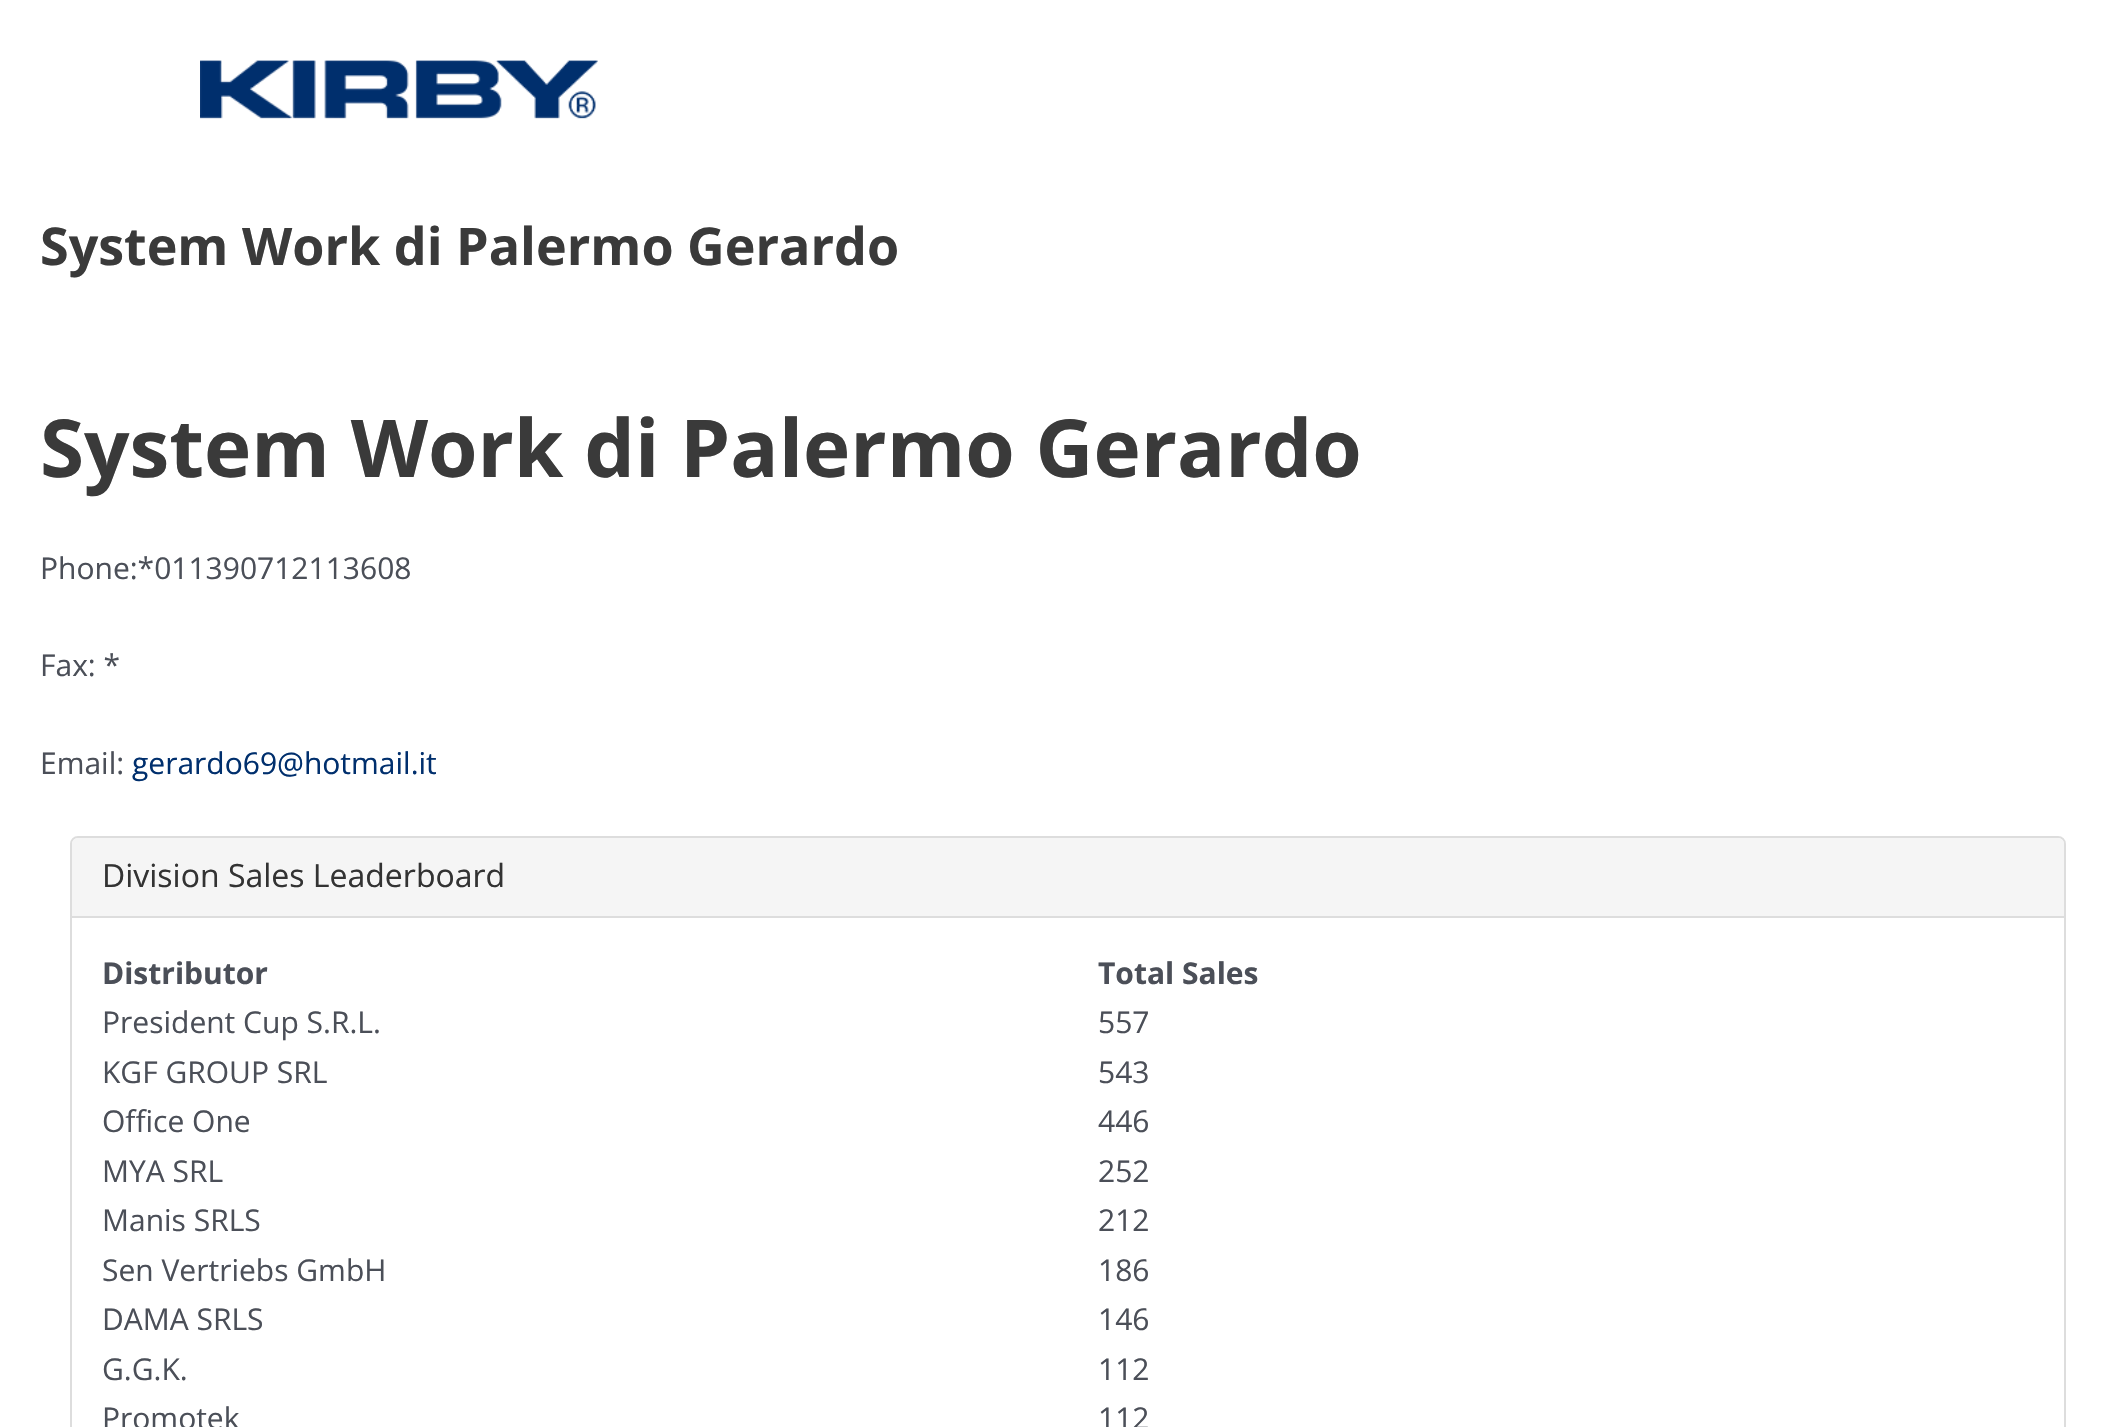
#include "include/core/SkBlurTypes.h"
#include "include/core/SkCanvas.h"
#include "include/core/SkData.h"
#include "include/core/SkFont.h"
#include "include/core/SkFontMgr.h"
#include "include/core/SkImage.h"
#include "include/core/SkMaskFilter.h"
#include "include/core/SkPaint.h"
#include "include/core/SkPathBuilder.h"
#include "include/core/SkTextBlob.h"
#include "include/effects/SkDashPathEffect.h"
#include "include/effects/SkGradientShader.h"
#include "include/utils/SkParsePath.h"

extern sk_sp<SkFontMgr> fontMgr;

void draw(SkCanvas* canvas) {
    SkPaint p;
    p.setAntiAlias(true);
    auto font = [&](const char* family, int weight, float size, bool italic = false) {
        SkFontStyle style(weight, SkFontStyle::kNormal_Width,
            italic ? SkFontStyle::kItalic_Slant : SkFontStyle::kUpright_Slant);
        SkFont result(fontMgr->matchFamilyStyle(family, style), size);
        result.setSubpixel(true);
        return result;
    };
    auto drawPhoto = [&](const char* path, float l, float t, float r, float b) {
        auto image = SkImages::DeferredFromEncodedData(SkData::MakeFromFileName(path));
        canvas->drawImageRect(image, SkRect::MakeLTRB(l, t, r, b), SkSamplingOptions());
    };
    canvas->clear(0xFFFFFFFF);
    drawPhoto("media/1.png", 200, 60, 598, 119);
    auto font1 = font("Open Sans", 700, 52);
    p.setColor(0xFF3A3A3A);
    canvas->drawString("System Work di Palermo Gerardo", 40, 265, font1, p);
    auto font2 = font("Open Sans", 700, 80);
    canvas->drawString("System Work di Palermo Gerardo", 40, 477, font2, p);
    auto font3 = font("Open Sans", 400, 30);
    p.setColor(0xFF4B4F58);
    {
        const struct { const char* s; float x, y; } items[] = {
            {"Phone:*011390712113608", 40, 579},
            {"Fax: *", 40, 676},
            {"Email:", 40, 774},
        };
        for (auto [s, x, y] : items) {
            canvas->drawString(s, x, y, font3, p);
        }
    }
    p.setColor(0xFF002F6D);
    canvas->drawString("gerardo69@hotmail.it", 132, 774, font3, p);
    p.setStyle(SkPaint::kStroke_Style);
    p.setStrokeWidth(2);
    p.setColor(0xFFDDDDDD);
    canvas->drawRoundRect(SkRect::MakeLTRB(71, 837, 2065, 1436), 7, 7, p);
    p.setStyle(SkPaint::kFill_Style);
    p.setColor(0xFFF5F5F5);
    canvas->drawPath(SkPathBuilder().moveTo(78, 838).lineTo(2058, 838).cubicTo(2061.5f, 838, 2064, 840.5f, 2064, 844).lineTo(2064, 916).lineTo(72, 916).lineTo(72, 844).cubicTo(72, 840.5f, 74.5f, 838, 78, 838).close().detach(), p);
    auto font4 = font("Open Sans", 400, 32);
    p.setColor(0xFF333333);
    canvas->drawString("Division Sales Leaderboard", 102, 887, font4, p);
    p.setColor(0xFFDDDDDD);
    canvas->drawRect(SkRect::MakeLTRB(72, 916, 2064, 918), p);
    auto font5 = font("Open Sans", 700, 30);
    p.setColor(0xFF4B4F58);
    canvas->drawString("Distributor", 102, 984, font5, p);
    canvas->drawString("Total Sales", 1098, 984, font5, p);
    {
        const struct { const char* s; float x, y; } items[] = {
            {"President Cup S.R.L.", 102, 1033},
            {"557", 1098, 1033},
            {"KGF GROUP SRL", 102, 1083},
            {"543", 1098, 1083},
            {"Office One", 102, 1132},
            {"446", 1098, 1132},
            {"MYA SRL", 102, 1182},
            {"252", 1098, 1182},
            {"Manis SRLS", 102, 1231},
            {"212", 1098, 1231},
            {"Sen Vertriebs GmbH", 102, 1281},
            {"186", 1098, 1281},
            {"DAMA SRLS", 102, 1330},
            {"146", 1098, 1330},
            {"G.G.K.", 102, 1380},
            {"112", 1098, 1380},
            {"Promotek", 102, 1429},
            {"112", 1098, 1429},
        };
        for (auto [s, x, y] : items) {
            canvas->drawString(s, x, y, font3, p);
        }
    }
}
